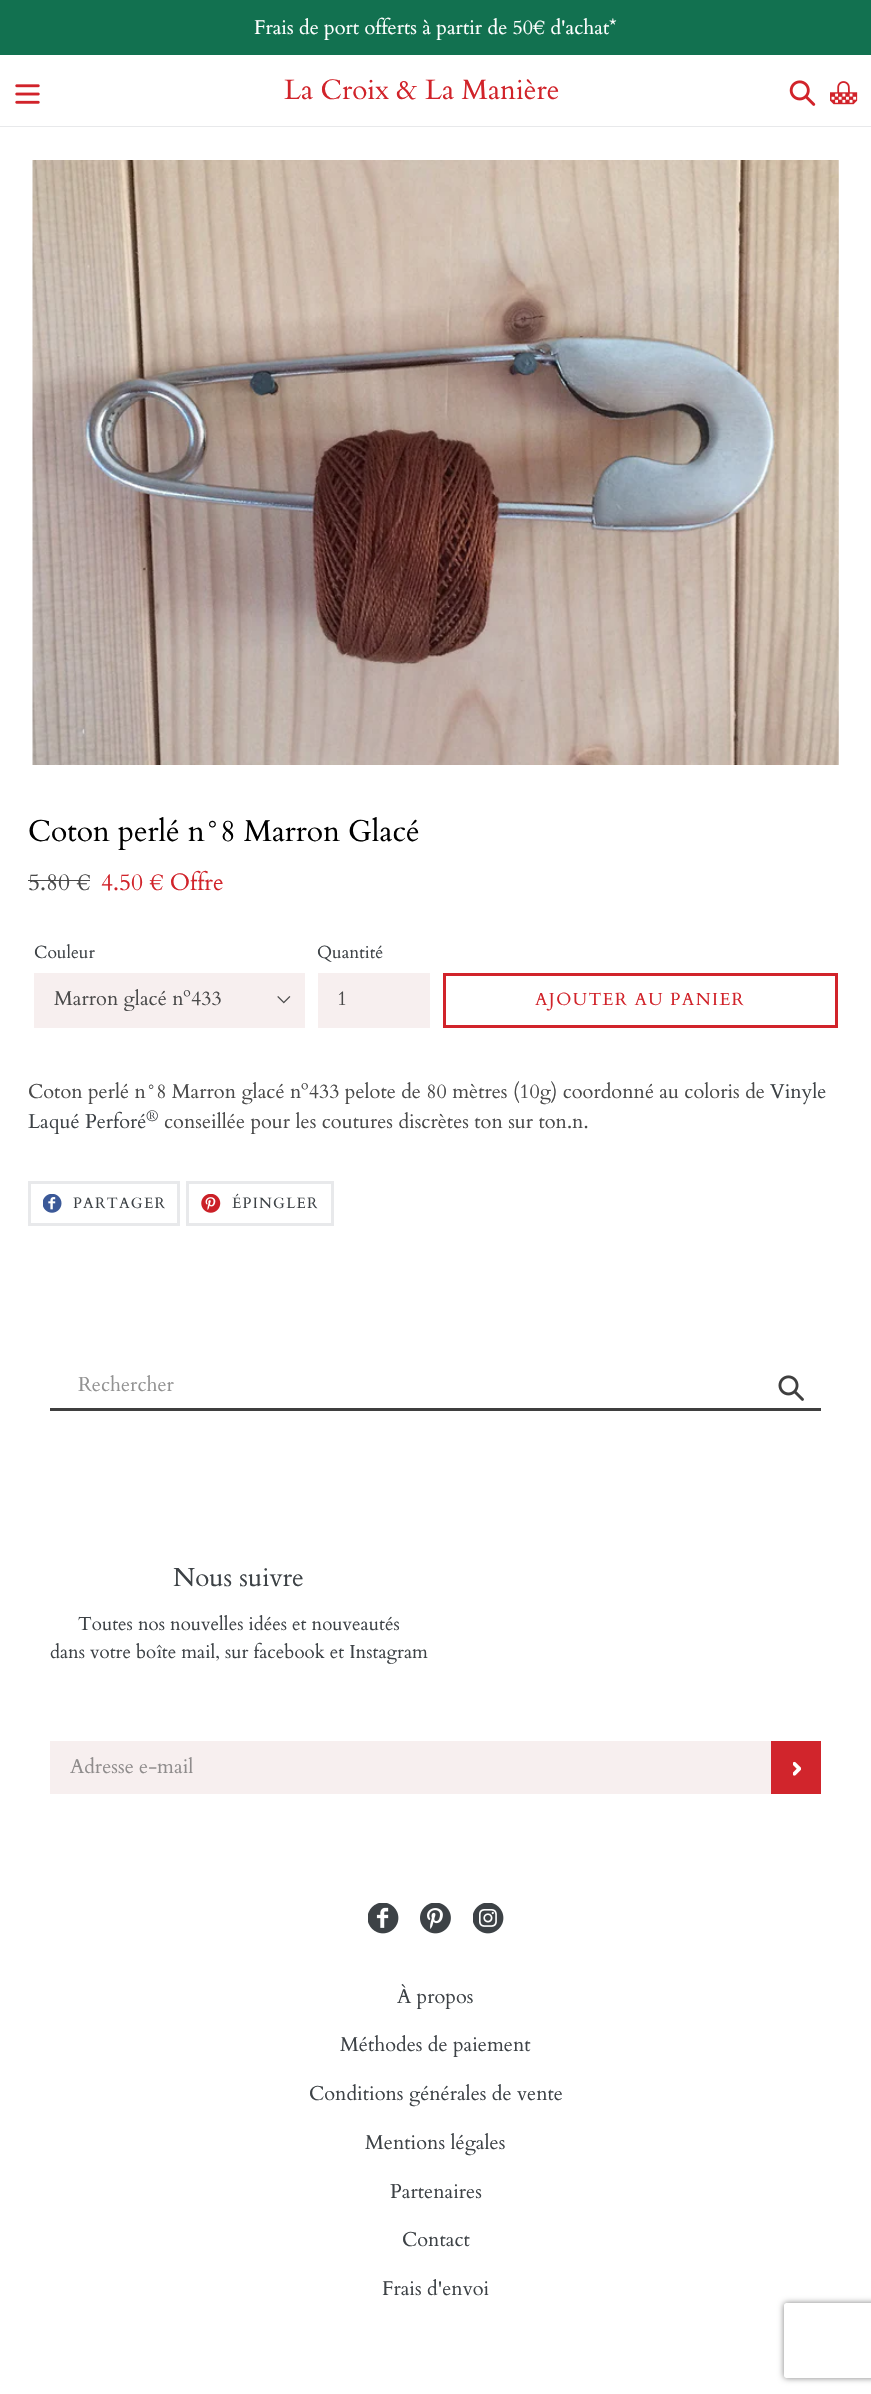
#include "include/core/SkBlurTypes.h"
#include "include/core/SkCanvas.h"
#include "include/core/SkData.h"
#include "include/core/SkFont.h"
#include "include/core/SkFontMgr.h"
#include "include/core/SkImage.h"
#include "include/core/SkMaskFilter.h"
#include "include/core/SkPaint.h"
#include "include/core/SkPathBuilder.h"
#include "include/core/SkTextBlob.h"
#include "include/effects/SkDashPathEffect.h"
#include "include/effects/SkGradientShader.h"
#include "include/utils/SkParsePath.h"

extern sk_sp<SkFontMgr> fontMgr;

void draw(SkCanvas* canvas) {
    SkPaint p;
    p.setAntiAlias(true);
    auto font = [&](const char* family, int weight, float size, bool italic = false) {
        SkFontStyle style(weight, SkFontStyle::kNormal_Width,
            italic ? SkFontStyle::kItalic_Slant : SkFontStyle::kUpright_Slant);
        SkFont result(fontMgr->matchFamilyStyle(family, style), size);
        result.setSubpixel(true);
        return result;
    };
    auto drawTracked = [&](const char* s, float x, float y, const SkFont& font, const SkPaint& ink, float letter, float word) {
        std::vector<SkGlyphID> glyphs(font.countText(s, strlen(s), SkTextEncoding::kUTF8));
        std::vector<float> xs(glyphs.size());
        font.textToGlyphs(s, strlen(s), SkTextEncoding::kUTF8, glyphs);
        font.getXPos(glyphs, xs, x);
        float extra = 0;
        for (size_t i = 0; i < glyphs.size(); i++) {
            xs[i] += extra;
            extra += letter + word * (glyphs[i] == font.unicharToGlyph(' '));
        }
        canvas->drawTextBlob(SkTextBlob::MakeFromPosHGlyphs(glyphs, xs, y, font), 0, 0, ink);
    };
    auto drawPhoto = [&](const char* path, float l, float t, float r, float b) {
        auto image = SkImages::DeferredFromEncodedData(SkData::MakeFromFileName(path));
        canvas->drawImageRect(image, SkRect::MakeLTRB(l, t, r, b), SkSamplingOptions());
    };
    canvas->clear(0xFFFFFFFF);
    p.setColor(0xFF127150);
    canvas->drawRect(SkRect::MakeLTRB(0, 0, 871, 55), p);
    auto font1 = font("Cardo", 400, 20);
    p.setColor(0xFFFFFFFF);
    canvas->drawString("Frais de port offerts à partir de 50€ d'achat*", 254, 34, font1, p);
    p.setColor(0xFFE8E9EB);
    canvas->drawRect(SkRect::MakeLTRB(0, 126, 871, 127), p);
    drawPhoto("media/1.png", 15, 84, 40, 104);
    auto font2 = font("Cardo", 400, 28);
    p.setColor(0xFFD1232A);
    canvas->drawString("La Croix & La Manière", 284, 99, font2, p);
    drawPhoto("media/2.png", 789, 80, 816, 106);
    drawPhoto("media/3.png", 830, 81, 858, 105);
    drawPhoto("media/4.png", 32, 160, 839, 765);
    auto font3 = font("Cardo", 400, 30);
    p.setColor(0xFF000000);
    canvas->drawString("Coton perlé n°8 Marron Glacé", 28, 841, font3, p);
    auto font4 = font("Cardo", 400, 23.5f);
    p.setColor(0xFF4A4A4A);
    canvas->drawString("5.80 €", 28, 890, font4, p);
    canvas->drawRect(SkRect::MakeLTRB(28, 880, 90, 881), p);
    p.setColor(0xFFD1232A);
    canvas->drawString("4.50 € Offre", 101, 890, font4, p);
    auto font5 = font("Cardo", 400, 17.5f);
    p.setColor(0xFF3D4246);
    canvas->drawString("Couleur", 34, 958, font5, p);
    p.setColor(0xFFF7EFEF);
    canvas->drawRect(SkRect::MakeLTRB(34, 973, 305, 1028), p);
    drawPhoto("media/5.png", 277, 996, 291, 1004);
    canvas->save();
    canvas->clipRect(SkRect::MakeLTRB(54, 988, 269, 1011));
    p.setColor(0xFF4A4A4A);
    canvas->drawString("Marron glacé nº433", 54, 1005, font1, p);
    canvas->restore();
    p.setColor(0xFF3D4246);
    canvas->drawString("Quantité", 317, 958, font5, p);
    p.setColor(0xFFF7EFEF);
    canvas->drawRect(SkRect::MakeLTRB(318, 973, 430, 1028), p);
    p.setColor(0xFF4A4A4A);
    canvas->drawString("1", 337, 1005, font1, p);
    p.setStyle(SkPaint::kStroke_Style);
    p.setStrokeWidth(3);
    p.setColor(0xFFD1232A);
    canvas->drawRect(SkRect::MakeLTRB(444.5f, 974.5f, 836.5f, 1026.5f), p);
    p.setStyle(SkPaint::kFill_Style);
    drawTracked("AJOUTER AU PANIER", 535, 1005, font5, p, 1.4f, 0);
    p.setColor(0xFF4A4A4A);
    canvas->drawString("Coton perlé n°8 Marron glacé nº433 pelote de 80 mètres (10g) coordonné au coloris de", 28, 1098, font1, p);
    p.setColor(0xFF3D4246);
    canvas->drawString("Vinyle", 770, 1098, font1, p);
    canvas->drawString("Laqué Perforé", 28, 1128, font1, p);
    auto font6 = font("Cardo", 400, 15);
    canvas->drawString("®", 146, 1121, font6, p);
    p.setColor(0xFF4A4A4A);
    canvas->drawString("conseillée pour les coutures discrètes ton sur ton.n.", 164, 1128, font1, p);
    p.setStyle(SkPaint::kStroke_Style);
    p.setColor(0xFFE8E9EB);
    canvas->drawRect(SkRect::MakeLTRB(29.5f, 1182.5f, 178.5f, 1224.5f), p);
    drawPhoto("media/6.png", 43, 1194, 62, 1213);
    p.setStyle(SkPaint::kFill_Style);
    p.setColor(0xFF3D4246);
    drawTracked("PARTAGER", 73, 1208, font6, p, 1.25f, 0);
    p.setStyle(SkPaint::kStroke_Style);
    p.setColor(0xFFE8E9EB);
    canvas->drawRect(SkRect::MakeLTRB(187.5f, 1182.5f, 332.5f, 1224.5f), p);
    drawPhoto("media/7.png", 201, 1194, 221, 1213);
    p.setStyle(SkPaint::kFill_Style);
    p.setColor(0xFF3D4246);
    drawTracked("ÉPINGLER", 232, 1208, font6, p, 1.25f, 0);
    p.setColor(0xFF3F3F3F);
    canvas->drawRect(SkRect::MakeLTRB(50, 1408, 821, 1411), p);
    p.setColor(0xFF929292);
    canvas->drawString("Rechercher", 78, 1391, font1, p);
    drawPhoto("media/8.png", 778, 1375, 804, 1401);
    auto font7 = font("Cardo", 400, 26);
    p.setColor(0xFF3D4246);
    canvas->drawString("Nous suivre", 173, 1586, font7, p);
    auto font8 = font("Cardo", 400, 18.75f);
    canvas->drawString("Toutes nos nouvelles idées et nouveautés", 78, 1630, font8, p);
    canvas->drawString("dans votre boîte mail, sur facebook et Instagram", 50, 1658, font8, p);
    p.setColor(0xFFF7EFEF);
    canvas->drawRect(SkRect::MakeLTRB(50, 1741, 771, 1794), p);
    p.setColor(0xFF8F8C8C);
    canvas->drawString("Adresse e-mail", 70, 1773, font1, p);
    p.setColor(0xFFD1252C);
    canvas->drawRect(SkRect::MakeLTRB(771, 1741, 821, 1794), p);
    drawPhoto("media/9.png", 793, 1761, 801, 1776);
    drawPhoto("media/10.png", 368, 1903, 399, 1934);
    drawPhoto("media/11.png", 420, 1903, 451, 1934);
    drawPhoto("media/12.png", 473, 1903, 504, 1934);
    p.setColor(0xFF3D4246);
    {
        const struct { const char* s; float x, y; } items[] = {
            {"À propos", 397, 2003},
            {"Méthodes de paiement", 340, 2051},
            {"Conditions générales de vente", 309, 2100},
            {"Mentions légales", 365, 2149},
            {"Partenaires", 390, 2198},
            {"Contact", 402, 2246},
            {"Frais d'envoi", 382, 2295},
        };
        for (auto [s, x, y] : items) {
            canvas->drawString(s, x, y, font1, p);
        }
    }
    canvas->save();
    canvas->clipPath(SkPathBuilder(SkPathFillType::kEvenOdd).moveTo(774, 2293).lineTo(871, 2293).lineTo(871, 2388).lineTo(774, 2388).close().moveTo(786.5f, 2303).lineTo(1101.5f, 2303).cubicTo(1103, 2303, 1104, 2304, 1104, 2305.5f).lineTo(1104, 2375.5f).cubicTo(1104, 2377, 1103, 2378, 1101.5f, 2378).lineTo(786.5f, 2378).cubicTo(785, 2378, 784, 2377, 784, 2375.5f).lineTo(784, 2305.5f).cubicTo(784, 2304, 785, 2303, 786.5f, 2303).close().detach(), true);
    p.setColor(0xFF808080);
    p.setMaskFilter(SkMaskFilter::MakeBlur(kNormal_SkBlurStyle, 3));
    canvas->drawRoundRect(SkRect::MakeLTRB(784, 2303, 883, 2378), 2.5f, 2.5f, p);
    p.setMaskFilter(nullptr);
    canvas->restore();
}
